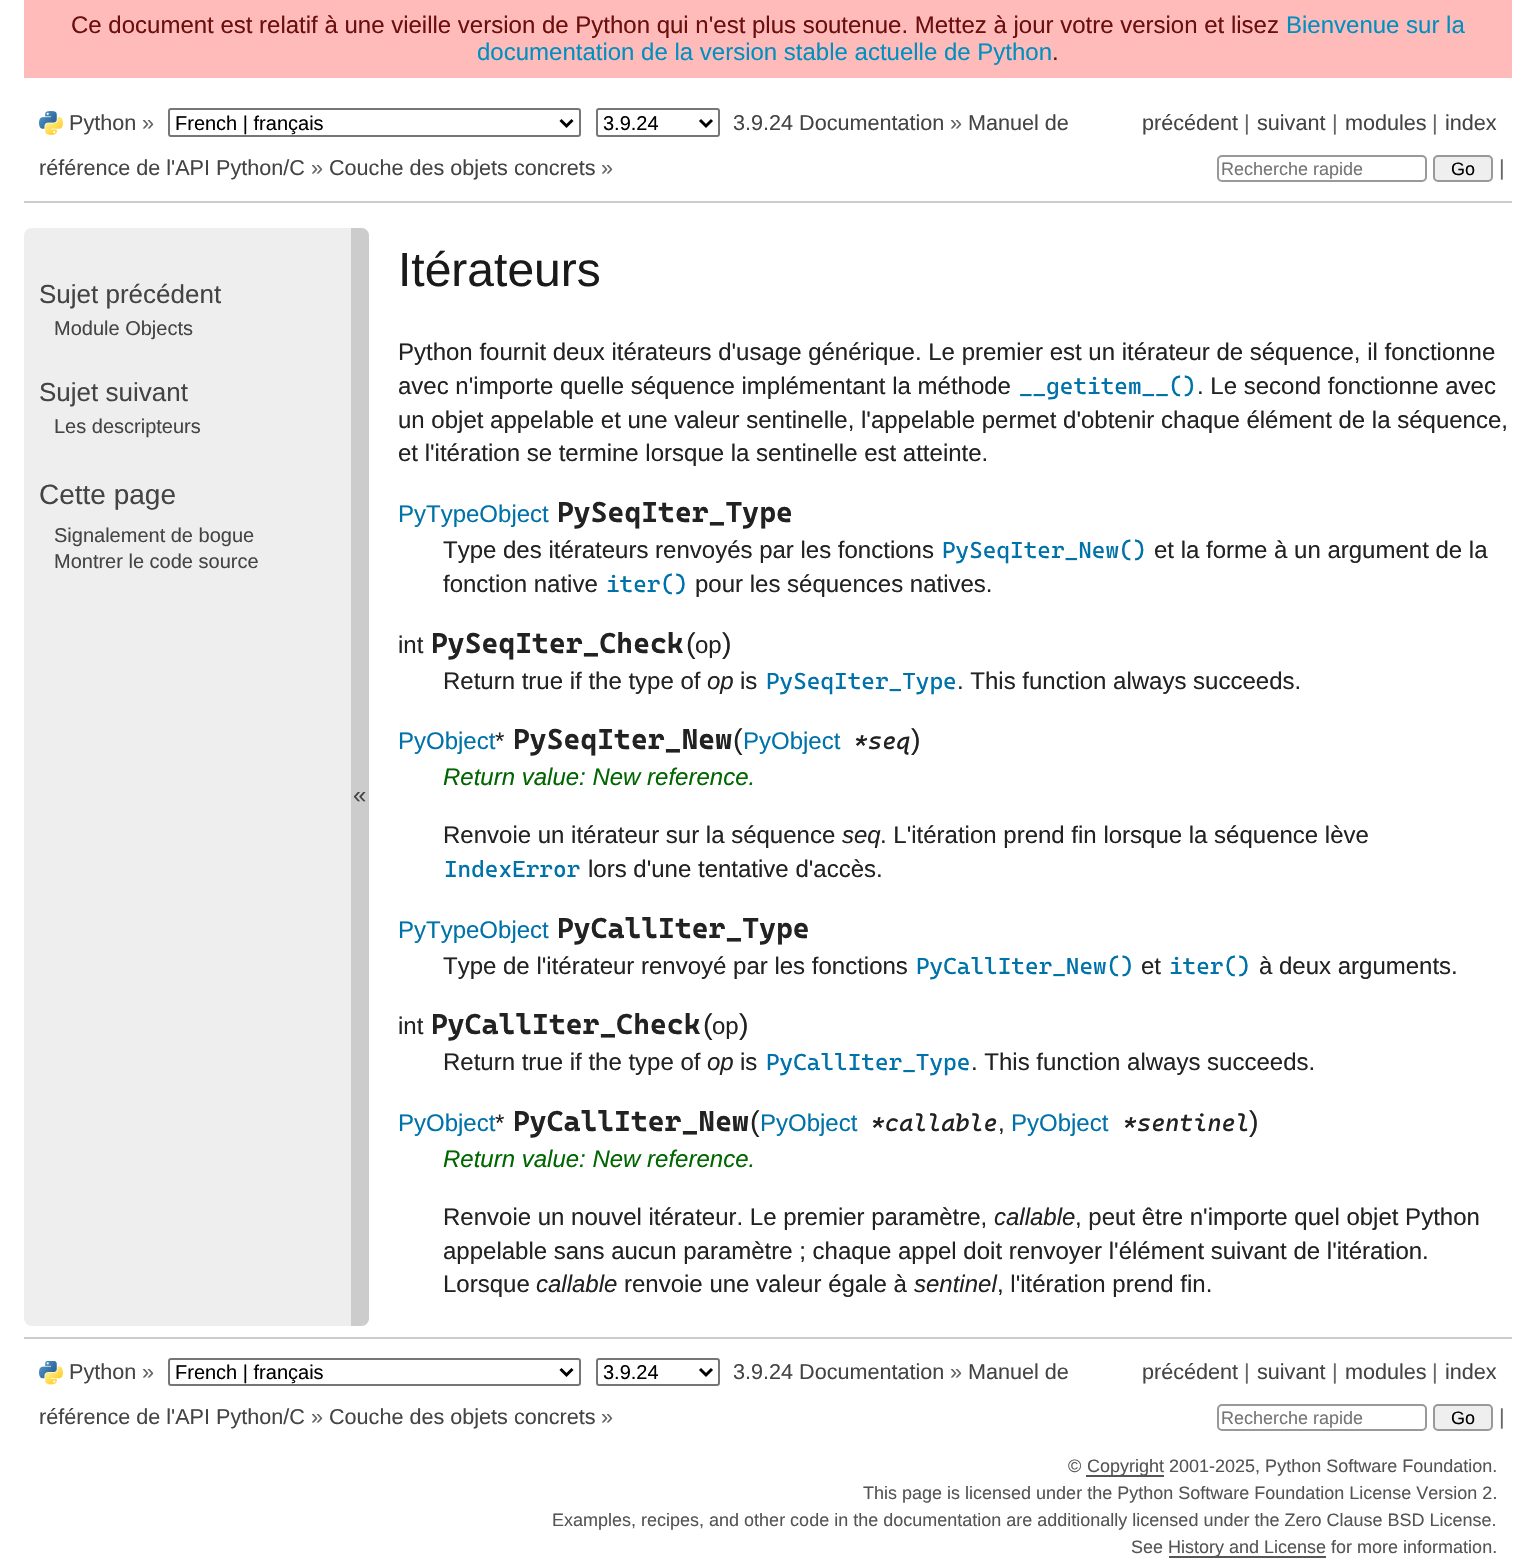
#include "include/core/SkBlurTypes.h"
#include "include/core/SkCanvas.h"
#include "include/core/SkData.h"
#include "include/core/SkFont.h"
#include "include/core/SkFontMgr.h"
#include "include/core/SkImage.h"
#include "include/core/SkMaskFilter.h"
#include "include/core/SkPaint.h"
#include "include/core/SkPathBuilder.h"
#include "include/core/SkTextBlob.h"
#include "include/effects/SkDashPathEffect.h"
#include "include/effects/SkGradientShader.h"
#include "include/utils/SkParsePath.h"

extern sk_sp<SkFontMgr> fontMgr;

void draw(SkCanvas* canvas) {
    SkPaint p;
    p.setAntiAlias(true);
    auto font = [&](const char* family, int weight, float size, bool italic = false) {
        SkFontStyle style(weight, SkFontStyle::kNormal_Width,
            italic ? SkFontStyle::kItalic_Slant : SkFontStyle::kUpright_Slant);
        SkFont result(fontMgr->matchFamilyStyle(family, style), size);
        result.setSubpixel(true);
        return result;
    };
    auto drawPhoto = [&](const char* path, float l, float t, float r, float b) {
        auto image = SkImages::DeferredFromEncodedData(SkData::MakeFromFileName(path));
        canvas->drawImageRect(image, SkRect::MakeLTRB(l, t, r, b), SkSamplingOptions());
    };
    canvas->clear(0xFFFFFFFF);
    p.setColor(0xFFFFBABA);
    canvas->drawRect(SkRect::MakeLTRB(24, 0, 1512, 78), p);
    auto font1 = font("Liberation Sans", 400, 24);
    p.setColor(0xFF6A0E0E);
    canvas->drawString("Ce document est relatif à une vieille version de Python qui n'est plus soutenue. Mettez à jour votre version et lisez", 71, 33, font1, p);
    p.setColor(0xFF0090C0);
    canvas->drawString("Bienvenue sur la", 1286, 33, font1, p);
    canvas->drawString("documentation de la version stable actuelle de Python", 477, 60, font1, p);
    p.setColor(0xFF6A0E0E);
    canvas->drawString(".", 1052, 60, font1, p);
    p.setColor(0xFFCCCCCC);
    canvas->drawRect(SkRect::MakeLTRB(24, 201, 1512, 203), p);
    drawPhoto("media/1.png", 39, 111, 63, 135);
    auto font2 = font("Liberation Sans", 400, 21.6f);
    p.setColor(0xFF444444);
    canvas->drawString("Python", 69, 130, font2, p);
    p.setColor(0xFF666666);
    canvas->drawString("»", 142, 130, font2, p);
    p.setStyle(SkPaint::kStroke_Style);
    p.setStrokeWidth(2);
    p.setColor(0xFF767676);
    canvas->drawRoundRect(SkRect::MakeLTRB(169, 109, 580, 136), 2, 2, p);
    p.setStrokeWidth(3);
    p.setColor(0xFF000000);
    canvas->drawPath(SkPathBuilder().moveTo(560.5f, 120).lineTo(566.5f, 126).lineTo(572.5f, 120).detach(), p);
    auto font3 = font("Liberation Sans", 400, 20);
    p.setStyle(SkPaint::kFill_Style);
    canvas->drawString("French | français", 175, 130, font3, p);
    p.setStyle(SkPaint::kStroke_Style);
    p.setStrokeWidth(2);
    p.setColor(0xFF767676);
    canvas->drawRoundRect(SkRect::MakeLTRB(597, 109, 719, 136), 2, 2, p);
    p.setStrokeWidth(3);
    p.setColor(0xFF000000);
    canvas->drawPath(SkPathBuilder().moveTo(700, 120).lineTo(706, 126).lineTo(712, 120).detach(), p);
    p.setStyle(SkPaint::kFill_Style);
    canvas->drawString("3.9.24", 603, 130, font3, p);
    p.setColor(0xFF444444);
    canvas->drawString("3.9.24 Documentation", 733, 130, font2, p);
    p.setColor(0xFF666666);
    canvas->drawString("»", 950, 130, font2, p);
    p.setColor(0xFF444444);
    canvas->drawString("Manuel de", 968, 130, font2, p);
    canvas->drawString("précédent", 1142, 130, font2, p);
    p.setColor(0xFF666666);
    canvas->drawString("|", 1244, 130, font2, p);
    p.setColor(0xFF444444);
    canvas->drawString("suivant", 1257, 130, font2, p);
    p.setColor(0xFF666666);
    canvas->drawString("|", 1332, 130, font2, p);
    p.setColor(0xFF444444);
    canvas->drawString("modules", 1345, 130, font2, p);
    p.setColor(0xFF666666);
    canvas->drawString("|", 1432, 130, font2, p);
    p.setColor(0xFF444444);
    canvas->drawString("index", 1445, 130, font2, p);
    canvas->drawString("référence de l'API Python/C", 39, 175, font2, p);
    p.setColor(0xFF666666);
    canvas->drawString("»", 311, 175, font2, p);
    p.setColor(0xFF444444);
    canvas->drawString("Couche des objets concrets", 329, 175, font2, p);
    p.setColor(0xFF666666);
    canvas->drawString("»", 601, 175, font2, p);
    p.setStyle(SkPaint::kStroke_Style);
    p.setStrokeWidth(2);
    p.setColor(0xFF999999);
    canvas->drawRoundRect(SkRect::MakeLTRB(1218, 156, 1426, 181), 4, 4, p);
    auto font4 = font("Liberation Sans", 400, 18);
    p.setStyle(SkPaint::kFill_Style);
    p.setColor(0xFF757575);
    canvas->drawString("Recherche rapide", 1221, 175, font4, p);
    p.setColor(0xFFEFEFEF);
    canvas->drawRoundRect(SkRect::MakeLTRB(1434, 156, 1492, 181), 4, 4, p);
    p.setStyle(SkPaint::kStroke_Style);
    p.setColor(0xFF999999);
    canvas->drawRoundRect(SkRect::MakeLTRB(1434, 156, 1492, 181), 4, 4, p);
    p.setStyle(SkPaint::kFill_Style);
    p.setColor(0xFF000000);
    canvas->drawString("Go", 1451, 175, font4, p);
    p.setColor(0xFF666666);
    canvas->drawString("|", 1499, 175, font2, p);
    p.setColor(0xFFEEEEEE);
    canvas->drawRoundRect(SkRect::MakeLTRB(24, 228, 369, 1326), 8, 8, p);
    auto font5 = font("Liberation Sans", 400, 26);
    p.setColor(0xFF444444);
    canvas->drawString("Sujet précédent", 39, 303, font5, p);
    canvas->drawString("Module Objects", 54, 335, font3, p);
    canvas->drawString("Sujet suivant", 39, 401, font5, p);
    canvas->drawString("Les descripteurs", 54, 433, font3, p);
    auto font6 = font("Liberation Sans", 400, 28);
    canvas->drawString("Cette page", 39, 504, font6, p);
    canvas->drawString("Signalement de bogue", 54, 542, font3, p);
    canvas->drawString("Montrer le code source", 54, 568, font3, p);
    p.setColor(0xFFCCCCCC);
    canvas->drawPath(SkPathBuilder().moveTo(351, 228).lineTo(361, 228).cubicTo(365.5f, 228, 369, 231.5f, 369, 236).lineTo(369, 1318).cubicTo(369, 1322.5f, 365.5f, 1326, 361, 1326).lineTo(351, 1326).close().detach(), p);
    p.setColor(0xFF444444);
    canvas->drawString("«", 353, 803, font1, p);
    auto font7 = font("Liberation Sans", 400, 48);
    p.setColor(0xFF1A1A1A);
    canvas->drawString("Itérateurs", 398, 286, font7, p);
    p.setColor(0xFF222222);
    canvas->drawString("Python fournit deux itérateurs d'usage générique. Le premier est un itérateur de séquence, il fonctionne", 398, 360, font1, p);
    canvas->drawString("avec n'importe quelle séquence implémentant la méthode", 398, 394, font1, p);
    auto font8 = font("Cascadia Mono", 400, 23.25f);
    p.setColor(0xFF0072AA);
    canvas->drawString("__getitem__()", 1019, 394, font8, p);
    p.setColor(0xFF222222);
    {
        const struct { const char* s; float x, y; } items[] = {
            {". Le second fonctionne avec", 1197, 394},
            {"un objet appelable et une valeur sentinelle, l'appelable permet d'obtenir chaque élément de la séquence,", 398, 428},
            {"et l'itération se termine lorsque la sentinelle est atteinte.", 398, 461},
        };
        for (auto [s, x, y] : items) {
            canvas->drawString(s, x, y, font1, p);
        }
    }
    p.setColor(0xFF0072AA);
    canvas->drawString("PyTypeObject", 398, 522, font1, p);
    auto font9 = font("Cascadia Mono", 700, 28.75f);
    p.setColor(0xFF222222);
    canvas->drawString("PySeqIter_Type", 557, 522, font9, p);
    canvas->drawString("Type des itérateurs renvoyés par les fonctions", 443, 558, font1, p);
    p.setColor(0xFF0072AA);
    canvas->drawString("PySeqIter_New()", 942, 558, font8, p);
    p.setColor(0xFF222222);
    canvas->drawString("et la forme à un argument de la", 1154, 558, font1, p);
    canvas->drawString("fonction native", 443, 592, font1, p);
    p.setColor(0xFF0072AA);
    canvas->drawString("iter()", 606, 592, font8, p);
    p.setColor(0xFF222222);
    canvas->drawString("pour les séquences natives.", 695, 592, font1, p);
    canvas->drawString("int", 398, 653, font1, p);
    canvas->drawString("PySeqIter_Check", 431, 653, font9, p);
    auto font10 = font("Liberation Sans", 400, 28.75f);
    canvas->drawString("(", 686, 653, font10, p);
    canvas->drawString("op", 695, 653, font1, p);
    canvas->drawString(")", 722, 653, font10, p);
    canvas->drawString("Return true if the type of", 443, 689, font1, p);
    auto font11 = font("Liberation Sans", 400, 24, true);
    canvas->drawString("op", 707, 689, font11, p);
    canvas->drawString("is", 740, 689, font1, p);
    p.setColor(0xFF0072AA);
    canvas->drawString("PySeqIter_Type", 766, 689, font8, p);
    p.setColor(0xFF222222);
    canvas->drawString(". This function always succeeds.", 957, 689, font1, p);
    p.setColor(0xFF0072AA);
    canvas->drawString("PyObject", 398, 749, font1, p);
    p.setColor(0xFF222222);
    canvas->drawString("*", 495, 749, font1, p);
    canvas->drawString("PySeqIter_New", 513, 749, font9, p);
    canvas->drawString("(", 733, 749, font10, p);
    p.setColor(0xFF0072AA);
    canvas->drawString("PyObject", 743, 749, font1, p);
    auto font12 = font("Cascadia Mono", 400, 24, true);
    p.setColor(0xFF222222);
    canvas->drawString("*seq", 854, 749, font12, p);
    canvas->drawString(")", 911, 749, font10, p);
    p.setColor(0xFF006600);
    canvas->drawString("Return value: New reference.", 443, 785, font11, p);
    p.setColor(0xFF222222);
    canvas->drawString("Renvoie un itérateur sur la séquence", 443, 843, font1, p);
    canvas->drawString("seq", 842, 843, font11, p);
    canvas->drawString(". L'itération prend fin lorsque la séquence lève", 880, 843, font1, p);
    p.setColor(0xFF0072AA);
    canvas->drawString("IndexError", 444, 877, font8, p);
    p.setColor(0xFF222222);
    canvas->drawString("lors d'une tentative d'accès.", 588, 877, font1, p);
    p.setColor(0xFF0072AA);
    canvas->drawString("PyTypeObject", 398, 938, font1, p);
    p.setColor(0xFF222222);
    canvas->drawString("PyCallIter_Type", 557, 938, font9, p);
    canvas->drawString("Type de l'itérateur renvoyé par les fonctions", 443, 974, font1, p);
    p.setColor(0xFF0072AA);
    canvas->drawString("PyCallIter_New()", 916, 974, font8, p);
    p.setColor(0xFF222222);
    canvas->drawString("et", 1141, 974, font1, p);
    p.setColor(0xFF0072AA);
    canvas->drawString("iter()", 1169, 974, font8, p);
    p.setColor(0xFF222222);
    canvas->drawString("à deux arguments.", 1259, 974, font1, p);
    canvas->drawString("int", 398, 1034, font1, p);
    canvas->drawString("PyCallIter_Check", 431, 1034, font9, p);
    canvas->drawString("(", 703, 1034, font10, p);
    canvas->drawString("op", 712, 1034, font1, p);
    canvas->drawString(")", 739, 1034, font10, p);
    canvas->drawString("Return true if the type of", 443, 1070, font1, p);
    canvas->drawString("op", 707, 1070, font11, p);
    canvas->drawString("is", 740, 1070, font1, p);
    p.setColor(0xFF0072AA);
    canvas->drawString("PyCallIter_Type", 766, 1070, font8, p);
    p.setColor(0xFF222222);
    canvas->drawString(". This function always succeeds.", 971, 1070, font1, p);
    p.setColor(0xFF0072AA);
    canvas->drawString("PyObject", 398, 1131, font1, p);
    p.setColor(0xFF222222);
    canvas->drawString("*", 495, 1131, font1, p);
    canvas->drawString("PyCallIter_New", 513, 1131, font9, p);
    canvas->drawString("(", 750, 1131, font10, p);
    p.setColor(0xFF0072AA);
    canvas->drawString("PyObject", 760, 1131, font1, p);
    p.setColor(0xFF222222);
    canvas->drawString("*callable", 871, 1131, font12, p);
    p.setColor(0xFF0072AA);
    canvas->drawString("PyObject", 1011, 1131, font1, p);
    p.setColor(0xFF222222);
    canvas->drawString("*sentinel", 1123, 1131, font12, p);
    canvas->drawString(")", 1249, 1131, font10, p);
    canvas->drawString(",", 998, 1131, font1, p);
    p.setColor(0xFF006600);
    canvas->drawString("Return value: New reference.", 443, 1167, font11, p);
    p.setColor(0xFF222222);
    canvas->drawString("Renvoie un nouvel itérateur. Le premier paramètre,", 443, 1225, font1, p);
    canvas->drawString("callable", 994, 1225, font11, p);
    {
        const struct { const char* s; float x, y; } items[] = {
            {", peut être n'importe quel objet Python", 1075, 1225},
            {"appelable sans aucun paramètre ; chaque appel doit renvoyer l'élément suivant de l'itération.", 443, 1259},
            {"Lorsque", 443, 1292},
        };
        for (auto [s, x, y] : items) {
            canvas->drawString(s, x, y, font1, p);
        }
    }
    canvas->drawString("callable", 536, 1292, font11, p);
    canvas->drawString("renvoie une valeur égale à", 624, 1292, font1, p);
    canvas->drawString("sentinel", 914, 1292, font11, p);
    canvas->drawString(", l'itération prend fin.", 997, 1292, font1, p);
    p.setColor(0xFFCCCCCC);
    canvas->drawRect(SkRect::MakeLTRB(24, 1337, 1512, 1339), p);
    drawPhoto("media/2.png", 39, 1361, 63, 1385);
    p.setColor(0xFF444444);
    canvas->drawString("Python", 69, 1379, font2, p);
    p.setColor(0xFF666666);
    canvas->drawString("»", 142, 1379, font2, p);
    p.setStyle(SkPaint::kStroke_Style);
    p.setColor(0xFF767676);
    canvas->drawRoundRect(SkRect::MakeLTRB(169, 1359, 580, 1385), 2, 2, p);
    p.setStrokeWidth(3);
    p.setColor(0xFF000000);
    canvas->drawPath(SkPathBuilder().moveTo(560.5f, 1369).lineTo(566.5f, 1375).lineTo(572.5f, 1369).detach(), p);
    p.setStyle(SkPaint::kFill_Style);
    canvas->drawString("French | français", 175, 1379, font3, p);
    p.setStyle(SkPaint::kStroke_Style);
    p.setStrokeWidth(2);
    p.setColor(0xFF767676);
    canvas->drawRoundRect(SkRect::MakeLTRB(597, 1359, 719, 1385), 2, 2, p);
    p.setStrokeWidth(3);
    p.setColor(0xFF000000);
    canvas->drawPath(SkPathBuilder().moveTo(700, 1369).lineTo(706, 1375).lineTo(712, 1369).detach(), p);
    p.setStyle(SkPaint::kFill_Style);
    canvas->drawString("3.9.24", 603, 1379, font3, p);
    p.setColor(0xFF444444);
    canvas->drawString("3.9.24 Documentation", 733, 1379, font2, p);
    p.setColor(0xFF666666);
    canvas->drawString("»", 950, 1379, font2, p);
    p.setColor(0xFF444444);
    canvas->drawString("Manuel de", 968, 1379, font2, p);
    canvas->drawString("précédent", 1142, 1379, font2, p);
    p.setColor(0xFF666666);
    canvas->drawString("|", 1244, 1379, font2, p);
    p.setColor(0xFF444444);
    canvas->drawString("suivant", 1257, 1379, font2, p);
    p.setColor(0xFF666666);
    canvas->drawString("|", 1332, 1379, font2, p);
    p.setColor(0xFF444444);
    canvas->drawString("modules", 1345, 1379, font2, p);
    p.setColor(0xFF666666);
    canvas->drawString("|", 1432, 1379, font2, p);
    p.setColor(0xFF444444);
    canvas->drawString("index", 1445, 1379, font2, p);
    canvas->drawString("référence de l'API Python/C", 39, 1424, font2, p);
    p.setColor(0xFF666666);
    canvas->drawString("»", 311, 1424, font2, p);
    p.setColor(0xFF444444);
    canvas->drawString("Couche des objets concrets", 329, 1424, font2, p);
    p.setColor(0xFF666666);
    canvas->drawString("»", 601, 1424, font2, p);
    p.setStyle(SkPaint::kStroke_Style);
    p.setStrokeWidth(2);
    p.setColor(0xFF999999);
    canvas->drawRoundRect(SkRect::MakeLTRB(1218, 1405, 1426, 1430), 4, 4, p);
    p.setStyle(SkPaint::kFill_Style);
    p.setColor(0xFF757575);
    canvas->drawString("Recherche rapide", 1221, 1424, font4, p);
    p.setColor(0xFFEFEFEF);
    canvas->drawRoundRect(SkRect::MakeLTRB(1434, 1405, 1492, 1430), 4, 4, p);
    p.setStyle(SkPaint::kStroke_Style);
    p.setColor(0xFF999999);
    canvas->drawRoundRect(SkRect::MakeLTRB(1434, 1405, 1492, 1430), 4, 4, p);
    p.setStyle(SkPaint::kFill_Style);
    p.setColor(0xFF000000);
    canvas->drawString("Go", 1451, 1424, font4, p);
    p.setColor(0xFF666666);
    canvas->drawString("|", 1499, 1424, font2, p);
    p.setColor(0xFF555555);
    canvas->drawString("©", 1068, 1472, font4, p);
    canvas->drawRect(SkRect::MakeLTRB(1086, 1475, 1164, 1477), p);
    {
        const struct { const char* s; float x, y; } items[] = {
            {"Copyright 2001-2025, Python Software Foundation.", 1087, 1472},
            {"This page is licensed under the Python Software Foundation License Version 2.", 863, 1499},
            {"Examples, recipes, and other code in the documentation are additionally licensed under the Zero Clause BSD License.", 552, 1526},
            {"See", 1131, 1553},
        };
        for (auto [s, x, y] : items) {
            canvas->drawString(s, x, y, font4, p);
        }
    }
    canvas->drawRect(SkRect::MakeLTRB(1169, 1556, 1326, 1558), p);
    canvas->drawString("History and License for more information.", 1168, 1553, font4, p);
}
